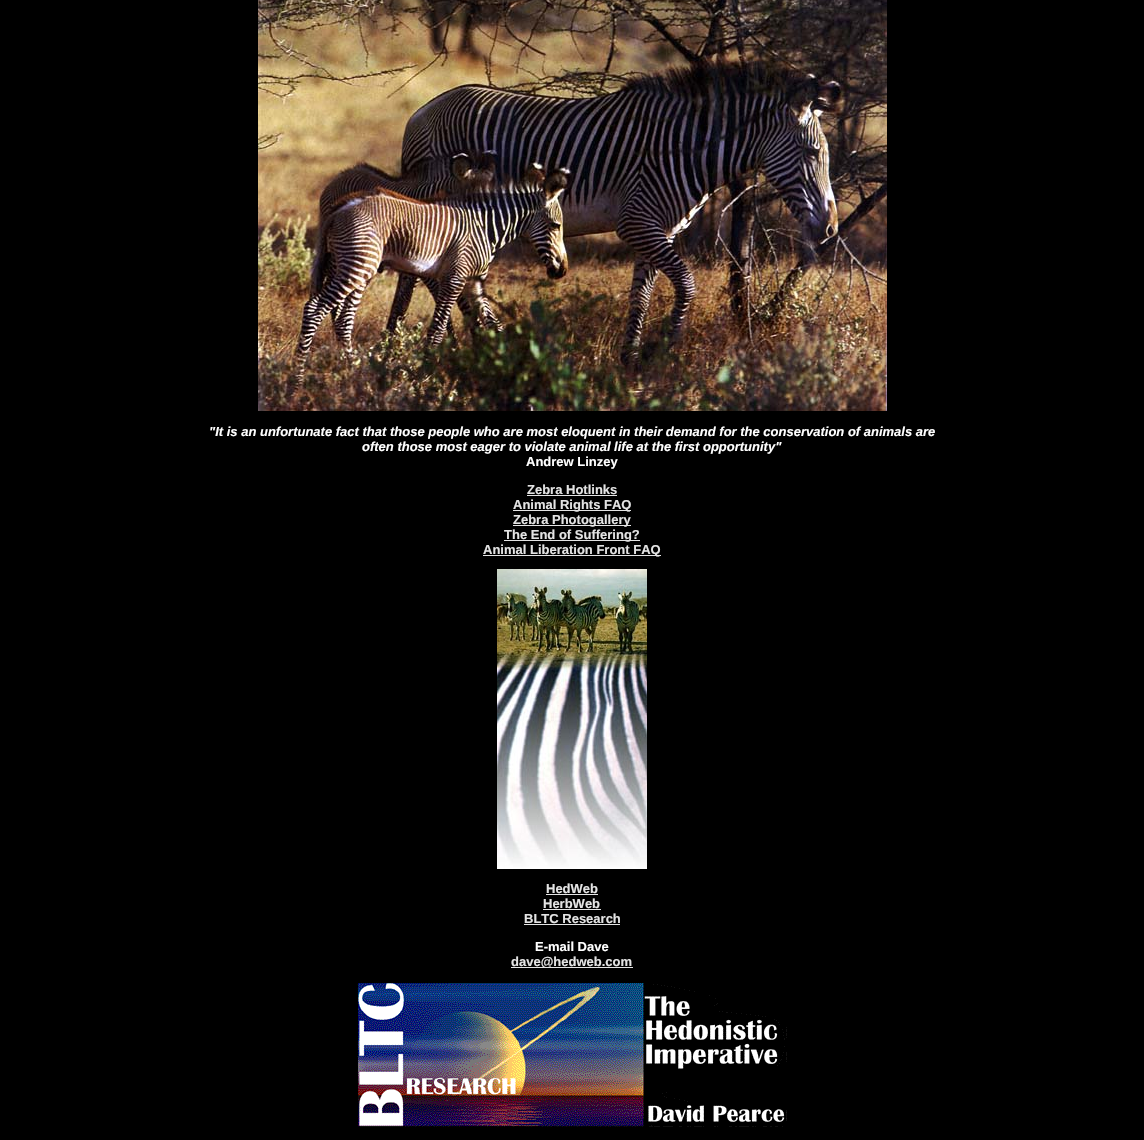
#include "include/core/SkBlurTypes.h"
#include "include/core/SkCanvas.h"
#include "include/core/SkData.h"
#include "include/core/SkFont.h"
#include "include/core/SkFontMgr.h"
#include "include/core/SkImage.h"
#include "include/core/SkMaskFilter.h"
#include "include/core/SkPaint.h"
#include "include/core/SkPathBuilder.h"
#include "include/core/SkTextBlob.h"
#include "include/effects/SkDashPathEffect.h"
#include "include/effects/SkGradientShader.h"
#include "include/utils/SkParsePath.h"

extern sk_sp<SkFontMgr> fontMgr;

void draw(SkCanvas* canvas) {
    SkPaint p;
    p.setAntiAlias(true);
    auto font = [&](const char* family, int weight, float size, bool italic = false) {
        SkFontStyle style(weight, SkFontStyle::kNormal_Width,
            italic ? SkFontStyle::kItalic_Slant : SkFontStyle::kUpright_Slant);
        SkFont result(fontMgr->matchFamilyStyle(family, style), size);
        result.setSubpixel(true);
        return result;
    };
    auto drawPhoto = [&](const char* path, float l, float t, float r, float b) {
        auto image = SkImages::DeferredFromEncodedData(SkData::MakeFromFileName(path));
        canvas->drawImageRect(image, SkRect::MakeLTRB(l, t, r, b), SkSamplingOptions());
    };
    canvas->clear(0xFF000000);
    drawPhoto("media/1.png", 258, 0, 887, 411);
    auto font1 = font("Liberation Sans", 700, 13, true);
    p.setColor(0xFFFFFFFF);
    canvas->drawString("\"It is an unfortunate fact that those people who are most eloquent in their demand for the conservation of animals are", 209, 436, font1, p);
    canvas->drawString("often those most eager to violate animal life at the first opportunity\"", 362, 451, font1, p);
    auto font2 = font("Liberation Sans", 700, 13);
    canvas->drawString("Andrew Linzey", 526, 466, font2, p);
    p.setColor(0xFFE4E4E4);
    canvas->drawString("Zebra Hotlinks", 527, 494, font2, p);
    canvas->drawRect(SkRect::MakeLTRB(527, 495, 617, 496), p);
    canvas->drawRect(SkRect::MakeLTRB(513, 510, 631, 511), p);
    canvas->drawString("Animal Rights FAQ", 513, 509, font2, p);
    canvas->drawRect(SkRect::MakeLTRB(513, 525, 631, 526), p);
    canvas->drawString("Zebra Photogallery", 513, 524, font2, p);
    canvas->drawRect(SkRect::MakeLTRB(504, 540, 640, 541), p);
    canvas->drawString("The End of Suffering?", 504, 539, font2, p);
    canvas->drawRect(SkRect::MakeLTRB(483, 555, 661, 556), p);
    canvas->drawString("Animal Liberation Front FAQ", 483, 554, font2, p);
    drawPhoto("media/2.png", 497, 569, 647, 869);
    canvas->drawString("HedWeb", 546, 893, font2, p);
    canvas->drawRect(SkRect::MakeLTRB(546, 894, 598, 895), p);
    canvas->drawString("HerbWeb", 543, 908, font2, p);
    canvas->drawRect(SkRect::MakeLTRB(543, 909, 601, 910), p);
    canvas->drawString("BLTC Research", 524, 923, font2, p);
    canvas->drawRect(SkRect::MakeLTRB(524, 924, 620, 925), p);
    p.setColor(0xFFFFFFFF);
    canvas->drawString("E-mail Dave", 535, 951, font2, p);
    p.setColor(0xFFE4E4E4);
    canvas->drawRect(SkRect::MakeLTRB(511, 967, 633, 968), p);
    canvas->drawString("dave@hedweb.com", 511, 966, font2, p);
    drawPhoto("media/3.png", 357, 983, 787, 1127);
}
